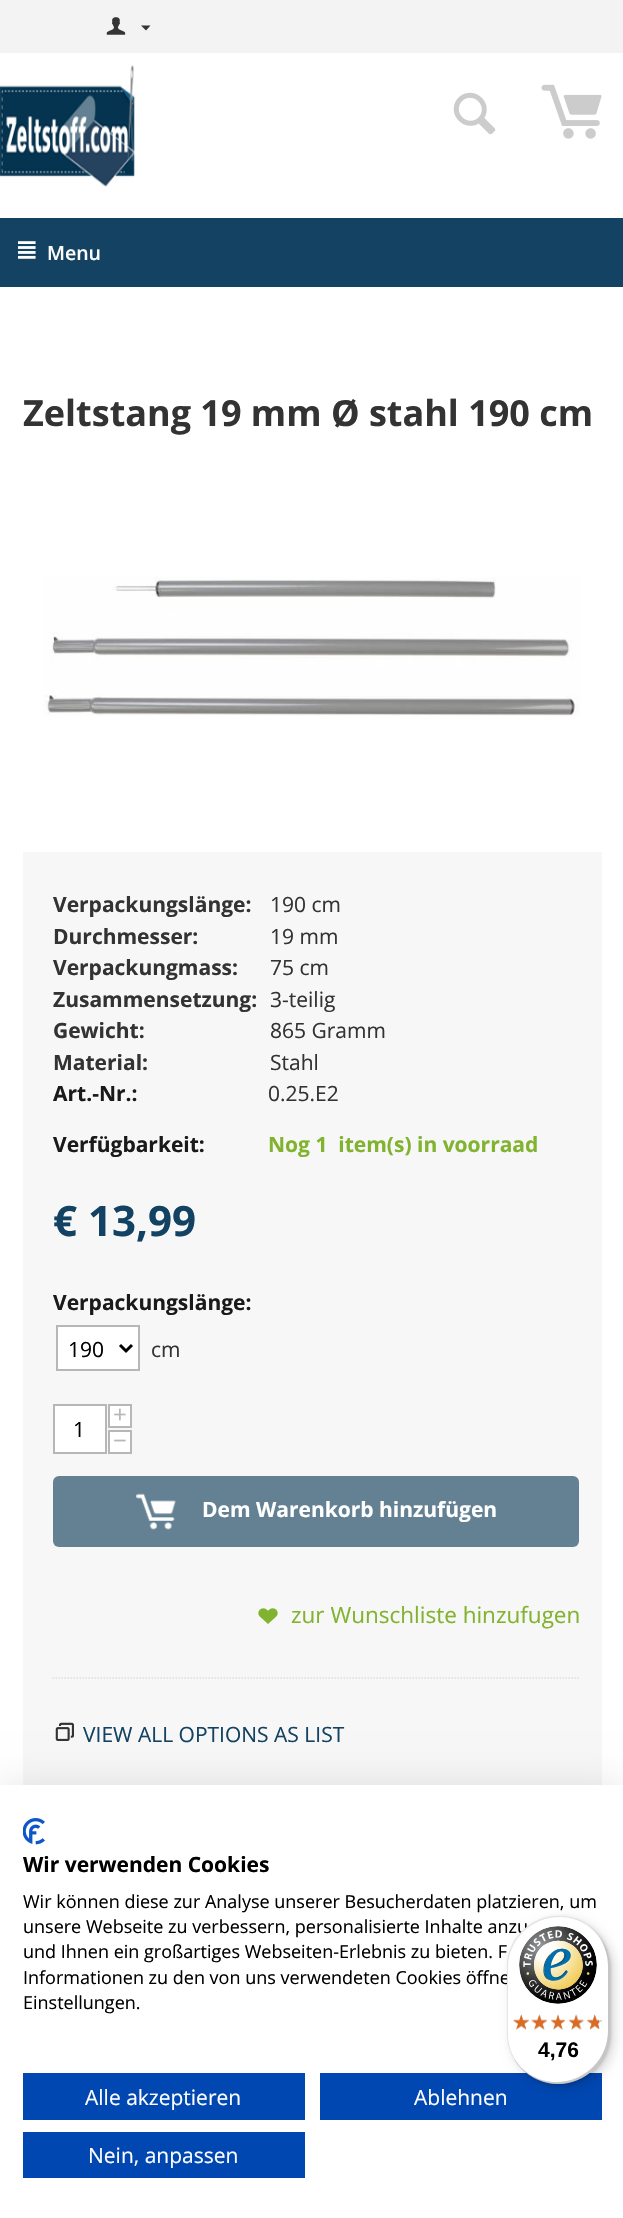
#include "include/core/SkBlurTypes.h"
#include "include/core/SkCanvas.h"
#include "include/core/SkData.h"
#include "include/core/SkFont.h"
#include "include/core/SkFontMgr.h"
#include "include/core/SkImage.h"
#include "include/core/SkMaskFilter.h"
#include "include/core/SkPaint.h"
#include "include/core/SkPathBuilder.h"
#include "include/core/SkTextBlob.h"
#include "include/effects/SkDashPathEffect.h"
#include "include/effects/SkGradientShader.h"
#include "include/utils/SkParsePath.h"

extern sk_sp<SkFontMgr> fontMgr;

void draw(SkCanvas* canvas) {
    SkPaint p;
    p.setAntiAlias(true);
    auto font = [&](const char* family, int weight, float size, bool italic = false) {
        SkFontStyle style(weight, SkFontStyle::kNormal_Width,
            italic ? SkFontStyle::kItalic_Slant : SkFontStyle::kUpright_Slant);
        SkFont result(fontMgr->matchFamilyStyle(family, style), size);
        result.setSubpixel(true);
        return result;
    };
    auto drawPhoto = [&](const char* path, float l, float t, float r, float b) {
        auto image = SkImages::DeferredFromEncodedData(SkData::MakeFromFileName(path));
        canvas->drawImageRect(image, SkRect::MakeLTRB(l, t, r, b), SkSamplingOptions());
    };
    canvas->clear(0xFFFFFFFF);
    p.setColor(0xFFF3F3F3);
    canvas->drawRect(SkRect::MakeLTRB(0, 0, 623, 53), p);
    drawPhoto("media/1.png", 106, 17, 126, 35);
    p.setColor(0xFF343434);
    canvas->drawPath(SkPathBuilder().moveTo(146, 30.5f).lineTo(141, 25.5f).lineTo(150.5f, 25.5f).close().detach(), p);
    drawPhoto("media/2.png", 0, 65, 136, 187);
    drawPhoto("media/3.png", 453, 92, 496, 135);
    drawPhoto("media/4.png", 541, 84, 602, 139);
    p.setColor(0xFF134262);
    canvas->drawRect(SkRect::MakeLTRB(0, 218, 623, 287), p);
    drawPhoto("media/5.png", 18, 241, 36, 259);
    auto font1 = font("Open Sans", 600, 19.5f);
    p.setColor(0xFFFFFFFF);
    canvas->drawString("Menu", 47, 260, font1, p);
    auto font2 = font("Open Sans", 700, 36);
    p.setColor(0xFF333333);
    canvas->drawString("Zeltstang 19 mm Ø stahl 190 cm", 23, 426, font2, p);
    drawPhoto("media/6.png", 43, 577, 580, 716);
    p.setColor(0xFFF7F7F7);
    canvas->drawRect(SkRect::MakeLTRB(23, 852, 602, 1785), p);
    auto font3 = font("Open Sans", 700, 21);
    p.setColor(0xFF333333);
    canvas->drawString("Verpackungslänge:", 53, 912, font3, p);
    auto font4 = font("Open Sans", 400, 21);
    canvas->drawString("190 cm", 270, 912, font4, p);
    canvas->drawString("Durchmesser:", 53, 944, font3, p);
    canvas->drawString("19 mm", 270, 944, font4, p);
    canvas->drawString("Verpackungmass:", 53, 975, font3, p);
    canvas->drawString("75 cm", 270, 975, font4, p);
    canvas->drawString("Zusammensetzung:", 53, 1007, font3, p);
    canvas->drawString("3-teilig", 270, 1007, font4, p);
    canvas->drawString("Gewicht:", 53, 1038, font3, p);
    canvas->drawString("865 Gramm", 270, 1038, font4, p);
    canvas->drawString("Material:", 53, 1070, font3, p);
    canvas->drawString("Stahl", 270, 1070, font4, p);
    p.setColor(0xFF1A1A1A);
    canvas->drawString("Art.-Nr.:", 53, 1101, font3, p);
    p.setColor(0xFF333333);
    canvas->drawString("0.25.E2", 268, 1101, font4, p);
    p.setColor(0xFF1A1A1A);
    canvas->drawString("Verfügbarkeit:", 53, 1152, font3, p);
    p.setColor(0xFF81B32F);
    canvas->drawString("Nog 1  item(s) in voorraad", 268, 1152, font3, p);
    auto font5 = font("Open Sans", 700, 42);
    p.setColor(0xFF134262);
    canvas->drawString("€ 13,99", 53, 1236, font5, p);
    p.setColor(0xFF1A1A1A);
    canvas->drawString("Verpackungslänge:", 53, 1310, font3, p);
    p.setColor(0xFFFFFFFF);
    canvas->drawRect(SkRect::MakeLTRB(57, 1326, 139, 1370), p);
    p.setStyle(SkPaint::kStroke_Style);
    p.setStrokeWidth(2);
    p.setColor(0xFFB8B6B6);
    canvas->drawRect(SkRect::MakeLTRB(57, 1326, 139, 1370), p);
    p.setStrokeWidth(3);
    p.setColor(0xFF000000);
    canvas->drawPath(SkPathBuilder().moveTo(120, 1345).lineTo(126, 1351).lineTo(132, 1345).detach(), p);
    p.setStyle(SkPaint::kFill_Style);
    canvas->drawString("190", 68, 1357, font4, p);
    p.setColor(0xFF333333);
    canvas->drawString("cm", 151, 1357, font4, p);
    p.setColor(0xFFFFFFFF);
    canvas->drawRect(SkRect::MakeLTRB(109, 1405, 131, 1427), p);
    p.setStyle(SkPaint::kStroke_Style);
    p.setStrokeWidth(2);
    p.setColor(0xFFB8B6B6);
    canvas->drawRect(SkRect::MakeLTRB(109, 1405, 131, 1427), p);
    auto font6 = font("Open Sans", 400, 24);
    p.setStyle(SkPaint::kFill_Style);
    canvas->drawString("+", 113, 1423, font6, p);
    p.setColor(0xFFFFFFFF);
    canvas->drawRect(SkRect::MakeLTRB(54, 1405, 106, 1453), p);
    p.setStyle(SkPaint::kStroke_Style);
    p.setColor(0xFFB8B6B6);
    canvas->drawRect(SkRect::MakeLTRB(54, 1405, 106, 1453), p);
    p.setStyle(SkPaint::kFill_Style);
    p.setColor(0xFF000000);
    canvas->drawString("1", 73, 1437, font4, p);
    p.setColor(0xFFFFFFFF);
    canvas->drawRect(SkRect::MakeLTRB(109, 1431, 131, 1453), p);
    p.setStyle(SkPaint::kStroke_Style);
    p.setColor(0xFFB8B6B6);
    canvas->drawRect(SkRect::MakeLTRB(109, 1431, 131, 1453), p);
    p.setStyle(SkPaint::kFill_Style);
    canvas->drawString("−", 113, 1449, font6, p);
    p.setColor(0xFF648194);
    canvas->drawRoundRect(SkRect::MakeLTRB(53, 1476, 579, 1547), 6, 6, p);
    drawPhoto("media/7.png", 135, 1493, 176, 1530);
    p.setColor(0xFFFFFFFF);
    canvas->drawString("Dem Warenkorb hinzufügen", 202, 1517, font3, p);
    drawPhoto("media/8.png", 258, 1608, 278, 1624);
    auto font7 = font("Open Sans", 400, 22.5f);
    p.setColor(0xFF81B32F);
    canvas->drawString("zur Wunschliste hinzufugen", 291, 1623, font7, p);
    p.setStyle(SkPaint::kStroke_Style);
    p.setStrokeWidth(1.5f);
    p.setColor(0xFFDEDEDE);
    p.setPathEffect(SkDashPathEffect::Make({{1.5f, 1.5f}}, 0));
    canvas->drawPath(SkPathBuilder().moveTo(52.5f, 1678).lineTo(579, 1678).detach(), p);
    p.setPathEffect(nullptr);
    drawPhoto("media/9.png", 55, 1722, 74, 1741);
    p.setStyle(SkPaint::kFill_Style);
    p.setColor(0xFF134262);
    canvas->drawString("VIEW ALL OPTIONS AS LIST", 83, 1742, font4, p);
    p.setColor(0x1A000000);
    p.setMaskFilter(SkMaskFilter::MakeBlur(kNormal_SkBlurStyle, 18));
    canvas->drawRect(SkRect::MakeLTRB(0, 1785, 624, 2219), p);
    p.setMaskFilter(nullptr);
    p.setColor(0xFFFFFFFF);
    canvas->drawRect(SkRect::MakeLTRB(0, 1785, 623, 2218), p);
    drawPhoto("media/10.png", 23, 1818, 45, 1845);
    p.setColor(0xFF000000);
    canvas->drawString("Wir verwenden Cookies", 23, 1872, font3, p);
    auto font8 = font("Open Sans", 400, 18);
    {
        const struct { const char* s; float x, y; } items[] = {
            {"Wir können diese zur Analyse unserer Besucherdaten platzieren, um", 23, 1908},
            {"unsere Webseite zu verbessern, personalisierte Inhalte anzu", 23, 1933},
            {"und Ihnen ein großartiges Webseiten-Erlebnis zu bieten. F", 23, 1958},
            {"Informationen zu den von uns verwendeten Cookies öffne", 23, 1984},
            {"Einstellungen.", 23, 2009},
        };
        for (auto [s, x, y] : items) {
            canvas->drawString(s, x, y, font8, p);
        }
    }
    p.setColor(0xFF0047B2);
    canvas->drawRect(SkRect::MakeLTRB(23, 2073, 305, 2120), p);
    p.setColor(0xFFFFFFFF);
    canvas->drawString("Alle akzeptieren", 85, 2105, font4, p);
    p.setColor(0xFF0047B2);
    canvas->drawRect(SkRect::MakeLTRB(320, 2073, 602, 2120), p);
    p.setColor(0xFFFFFFFF);
    canvas->drawString("Ablehnen", 414, 2105, font4, p);
    p.setColor(0xFF0047B2);
    canvas->drawRect(SkRect::MakeLTRB(23, 2132, 305, 2178), p);
    p.setColor(0xFFFFFFFF);
    canvas->drawString("Nein, anpassen", 88, 2163, font4, p);
    p.setColor(0x26000000);
    p.setMaskFilter(SkMaskFilter::MakeBlur(kNormal_SkBlurStyle, 6));
    canvas->drawRoundRect(SkRect::MakeLTRB(512, 1920, 614, 2088), 51, 51, p);
    p.setMaskFilter(nullptr);
    p.setMaskFilter(SkMaskFilter::MakeBlur(kNormal_SkBlurStyle, 1.5f));
    canvas->drawRoundRect(SkRect::MakeLTRB(509, 1917, 611, 2085), 51, 51, p);
    p.setMaskFilter(nullptr);
    p.setColor(0xFFFFFFFF);
    canvas->drawRoundRect(SkRect::MakeLTRB(507, 1916, 609, 2084), 51, 51, p);
    p.setColor(0x1A000000);
    canvas->drawPath(SkPathBuilder().moveTo(560, 1917).cubicTo(570, 1917, 578, 1920, 586, 1924).cubicTo(578, 1919, 568, 1916, 558, 1916).cubicTo(530, 1916, 507, 1939, 507, 1967).lineTo(507, 2033).cubicTo(507, 2050, 515, 2065, 528, 2074).cubicTo(516, 2065, 508, 2050, 508, 2034).lineTo(508, 1968).cubicTo(508, 1940, 531, 1917, 560, 1917).close().detach(), p);
    p.setColor(0x33000000);
    canvas->drawPath(SkPathBuilder().moveTo(514, 2058).cubicTo(522, 2074, 539, 2084, 558, 2084).cubicTo(586, 2084, 609, 2061, 609, 2033).lineTo(609, 1967).cubicTo(609, 1958, 607, 1949, 602, 1942).cubicTo(606, 1949, 608, 1957, 608, 1965).lineTo(608, 2031).cubicTo(608, 2059, 585, 2082, 556, 2082).cubicTo(538, 2082, 522, 2072, 514, 2058).close().detach(), p);
    p.setColor(0x33323232);
    canvas->drawPath(SkPathBuilder().moveTo(519, 2066).cubicTo(529, 2077, 543, 2084, 558, 2084).cubicTo(586, 2084, 609, 2061, 609, 2033).lineTo(609, 1967).cubicTo(609, 1955, 605, 1944, 598, 1935).cubicTo(604, 1944, 608, 1954, 608, 1966).lineTo(608, 2032).cubicTo(608, 2060, 585, 2083, 557, 2083).cubicTo(542, 2083, 529, 2077, 519, 2066).close().detach(), p);
    p.setColor(0x4DFFFFFF);
    canvas->drawPath(SkPathBuilder().moveTo(519, 2066).cubicTo(529, 2077, 543, 2084, 558, 2084).cubicTo(586, 2084, 609, 2061, 609, 2033).lineTo(609, 1967).cubicTo(609, 1952, 602, 1938, 591, 1928).cubicTo(602, 1938, 608, 1951, 608, 1966).lineTo(608, 2032).cubicTo(608, 2060, 585, 2083, 557, 2083).cubicTo(542, 2083, 529, 2077, 519, 2066).close().detach(), p);
    drawPhoto("media/11.png", 519, 1926, 597, 2004);
    drawPhoto("media/12.png", 513, 2015, 529, 2029);
    drawPhoto("media/13.png", 533, 2015, 547, 2030);
    drawPhoto("media/14.png", 551, 2015, 565, 2029);
    drawPhoto("media/15.png", 569, 2014, 585, 2030);
    drawPhoto("media/16.png", 587, 2015, 603, 2029);
    drawPhoto("media/17.png", 513, 2014, 529, 2030);
    drawPhoto("media/18.png", 531, 2014, 547, 2030);
    drawPhoto("media/19.png", 551, 2014, 565, 2030);
    drawPhoto("media/20.png", 569, 2014, 583, 2030);
    drawPhoto("media/21.png", 587, 2014, 599, 2030);
    auto font9 = font("Liberation Sans", 700, 21);
    p.setColor(0xFF000000);
    canvas->drawString("4,76", 538, 2057, font9, p);
}
